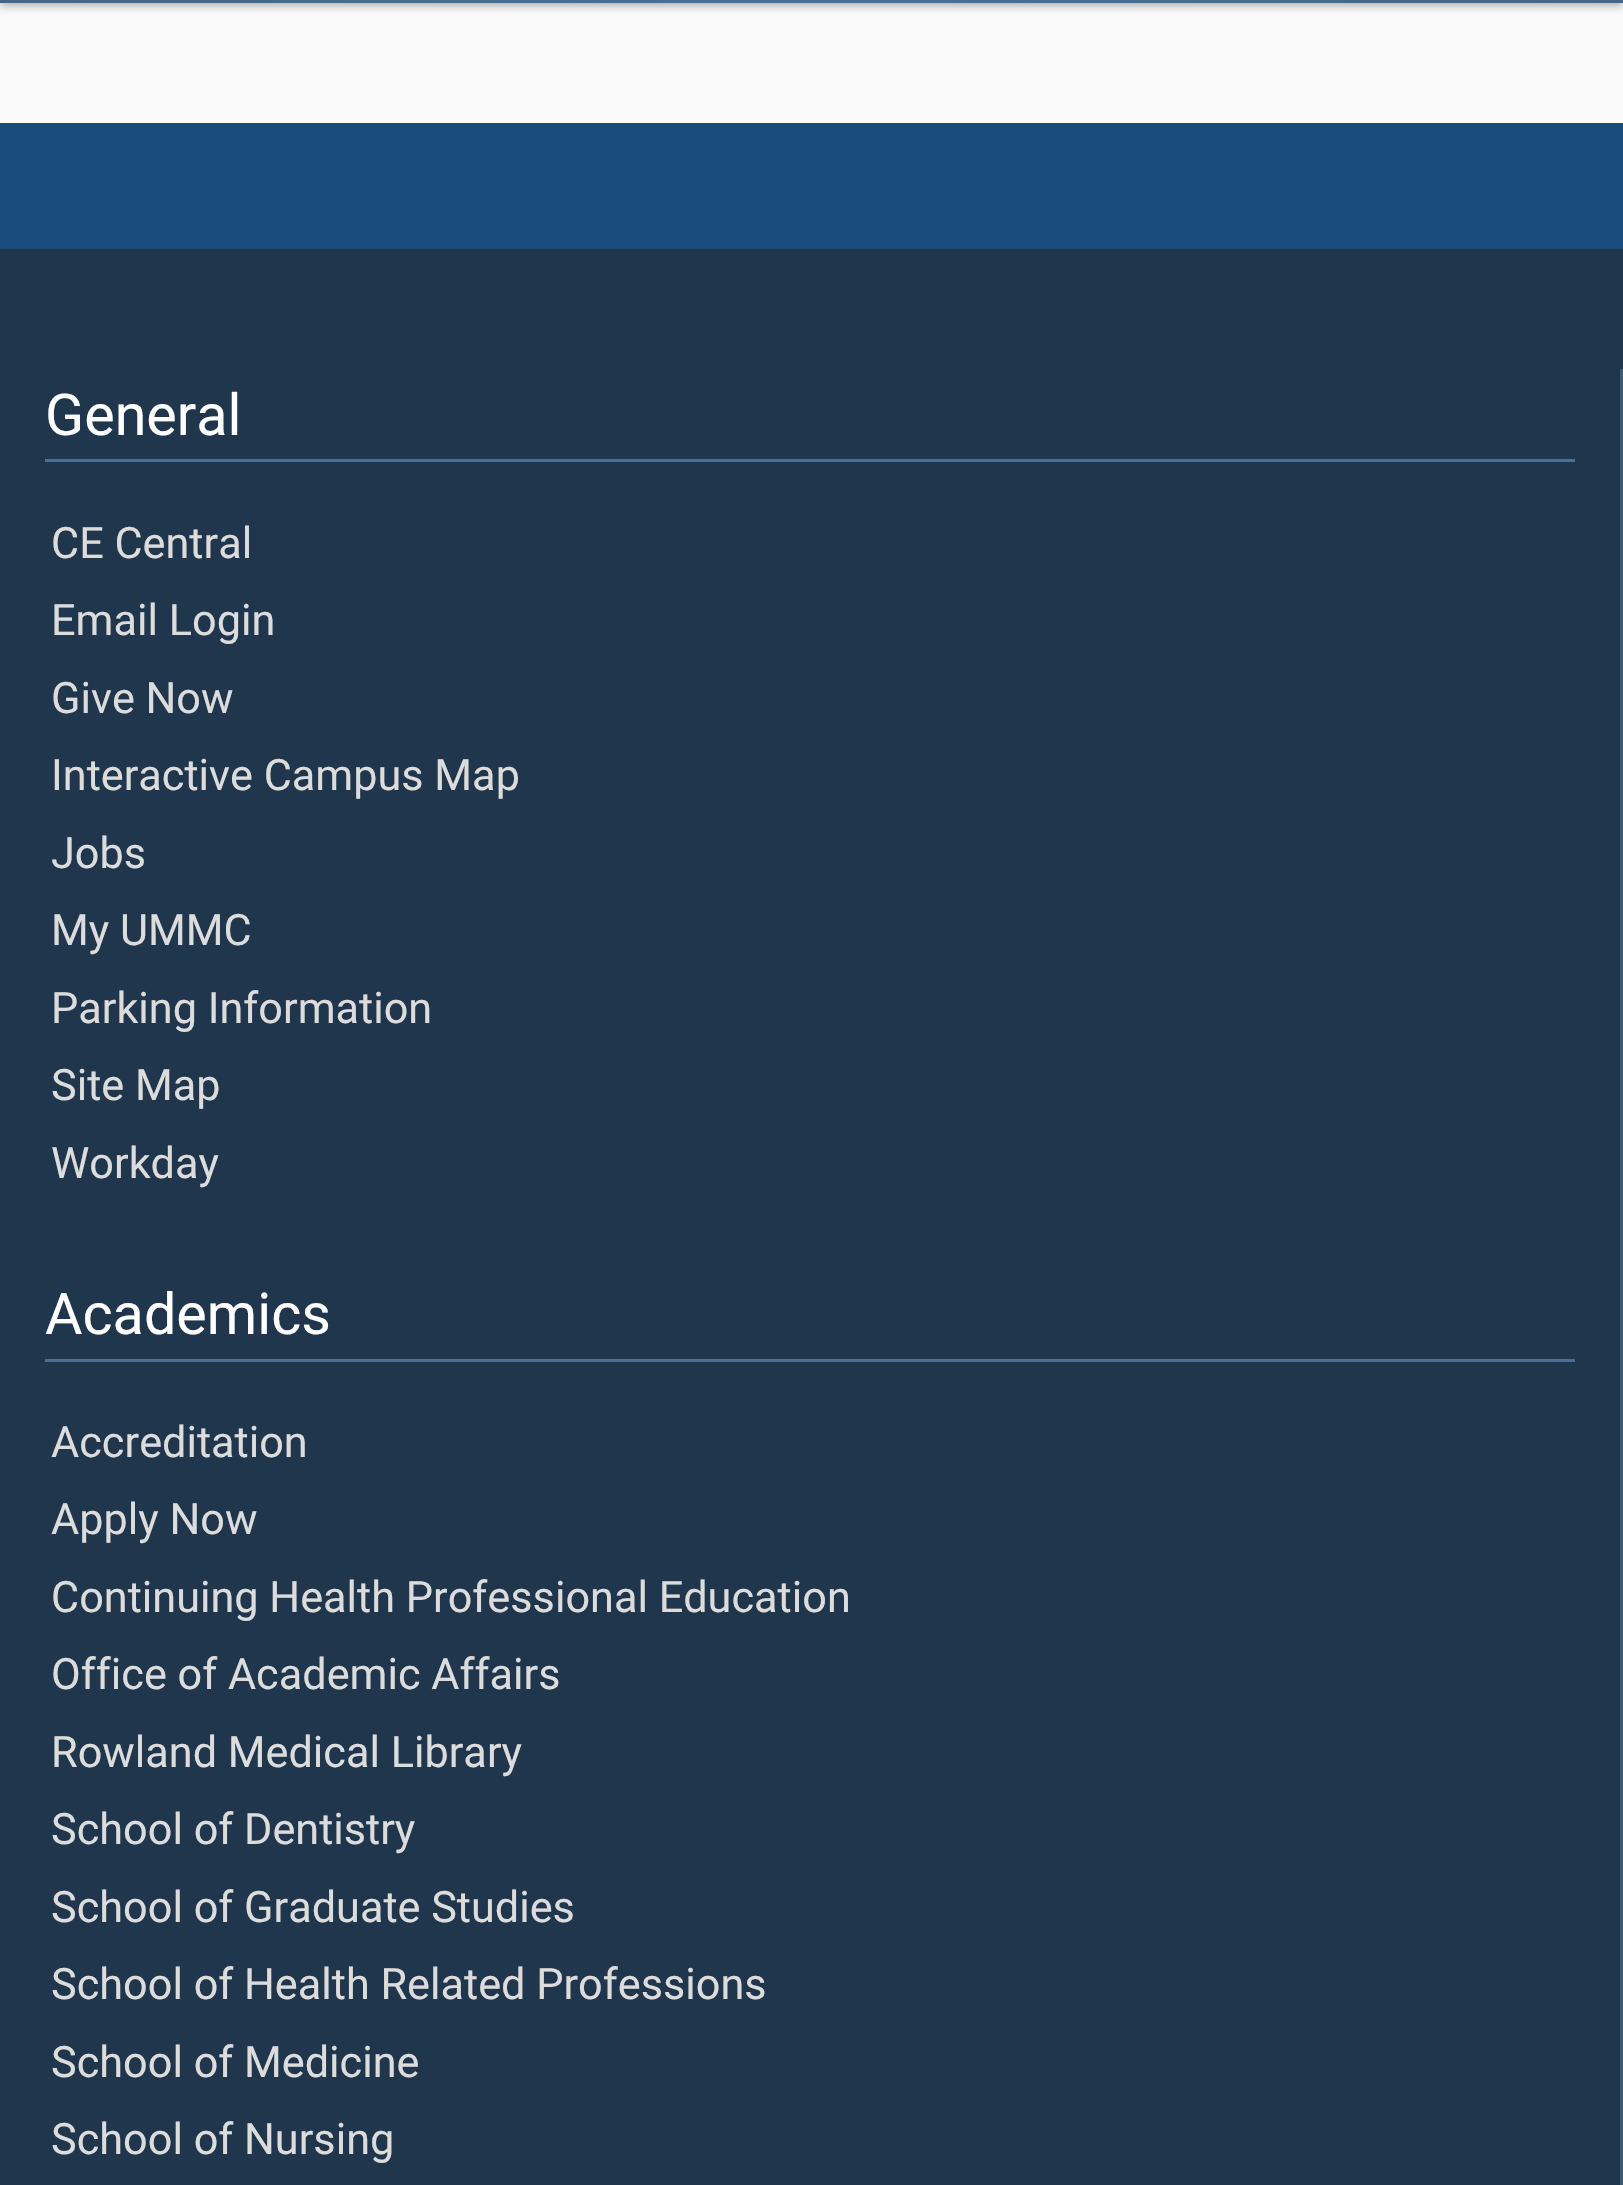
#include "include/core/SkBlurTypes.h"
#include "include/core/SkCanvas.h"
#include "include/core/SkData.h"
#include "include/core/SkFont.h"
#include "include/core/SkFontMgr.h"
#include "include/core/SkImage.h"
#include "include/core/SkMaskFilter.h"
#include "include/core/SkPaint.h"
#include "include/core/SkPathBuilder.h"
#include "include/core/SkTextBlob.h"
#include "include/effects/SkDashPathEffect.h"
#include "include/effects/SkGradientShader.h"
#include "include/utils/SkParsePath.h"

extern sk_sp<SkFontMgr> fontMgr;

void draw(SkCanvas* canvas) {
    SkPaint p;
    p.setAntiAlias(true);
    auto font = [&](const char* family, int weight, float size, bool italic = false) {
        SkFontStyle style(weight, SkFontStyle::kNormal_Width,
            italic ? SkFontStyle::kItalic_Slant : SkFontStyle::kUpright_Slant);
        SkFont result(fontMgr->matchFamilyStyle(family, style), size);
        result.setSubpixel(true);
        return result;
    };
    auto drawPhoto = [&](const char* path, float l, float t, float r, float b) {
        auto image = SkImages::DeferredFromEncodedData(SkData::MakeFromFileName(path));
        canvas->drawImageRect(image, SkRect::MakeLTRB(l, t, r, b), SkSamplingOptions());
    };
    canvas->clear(0xFFFAFAFA);
    p.setColor(0x4D000000);
    p.setMaskFilter(SkMaskFilter::MakeBlur(kNormal_SkBlurStyle, 4.5f));
    canvas->drawRect(SkRect::MakeLTRB(0, -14, 1623, 6), p);
    p.setMaskFilter(nullptr);
    drawPhoto("media/1.png", 0, 0, 1623, 3);
    {
        const struct { float l, t, r, b; SkColor color; } items[] = {
            {0, 249, 1623, 2185, 0xFF1F364C},
            {0, 123, 1623, 249, 0xFF184C7C},
            {1620, 369, 1623, 2185, 0xFF3E5973},
            {45, 459, 1575, 462, 0xFF4B6F92},
        };
        for (auto [l, t, r, b, color] : items) {
            p.setColor(color);
            canvas->drawRect(SkRect::MakeLTRB(l, t, r, b), p);
        }
    }
    auto font1 = font("Roboto", 400, 57.5f);
    p.setColor(0xFFFFFFFF);
    canvas->drawString("General", 45, 435, font1, p);
    auto font2 = font("Roboto", 400, 43.25f);
    p.setColor(0xFFDCDCDC);
    {
        const struct { const char* s; float x, y; } items[] = {
            {"CE Central", 51, 558},
            {"Email Login", 51, 635},
            {"Give Now", 51, 713},
            {"Interactive Campus Map", 51, 790},
            {"Jobs", 51, 868},
            {"My UMMC", 51, 945},
            {"Parking Information", 51, 1023},
            {"Site Map", 51, 1100},
            {"Workday", 51, 1178},
        };
        for (auto [s, x, y] : items) {
            canvas->drawString(s, x, y, font2, p);
        }
    }
    p.setColor(0xFF4B6F92);
    canvas->drawRect(SkRect::MakeLTRB(45, 1359, 1575, 1362), p);
    p.setColor(0xFFFFFFFF);
    canvas->drawString("Academics", 45, 1334, font1, p);
    p.setColor(0xFFDCDCDC);
    {
        const struct { const char* s; float x, y; } items[] = {
            {"Accreditation", 51, 1457},
            {"Apply Now", 51, 1534},
            {"Continuing Health Professional Education", 51, 1612},
            {"Office of Academic Affairs", 51, 1689},
            {"Rowland Medical Library", 51, 1767},
            {"School of Dentistry", 51, 1844},
            {"School of Graduate Studies", 51, 1922},
            {"School of Health Related Professions", 51, 1999},
            {"School of Medicine", 51, 2077},
            {"School of Nursing", 51, 2154},
        };
        for (auto [s, x, y] : items) {
            canvas->drawString(s, x, y, font2, p);
        }
    }
}
